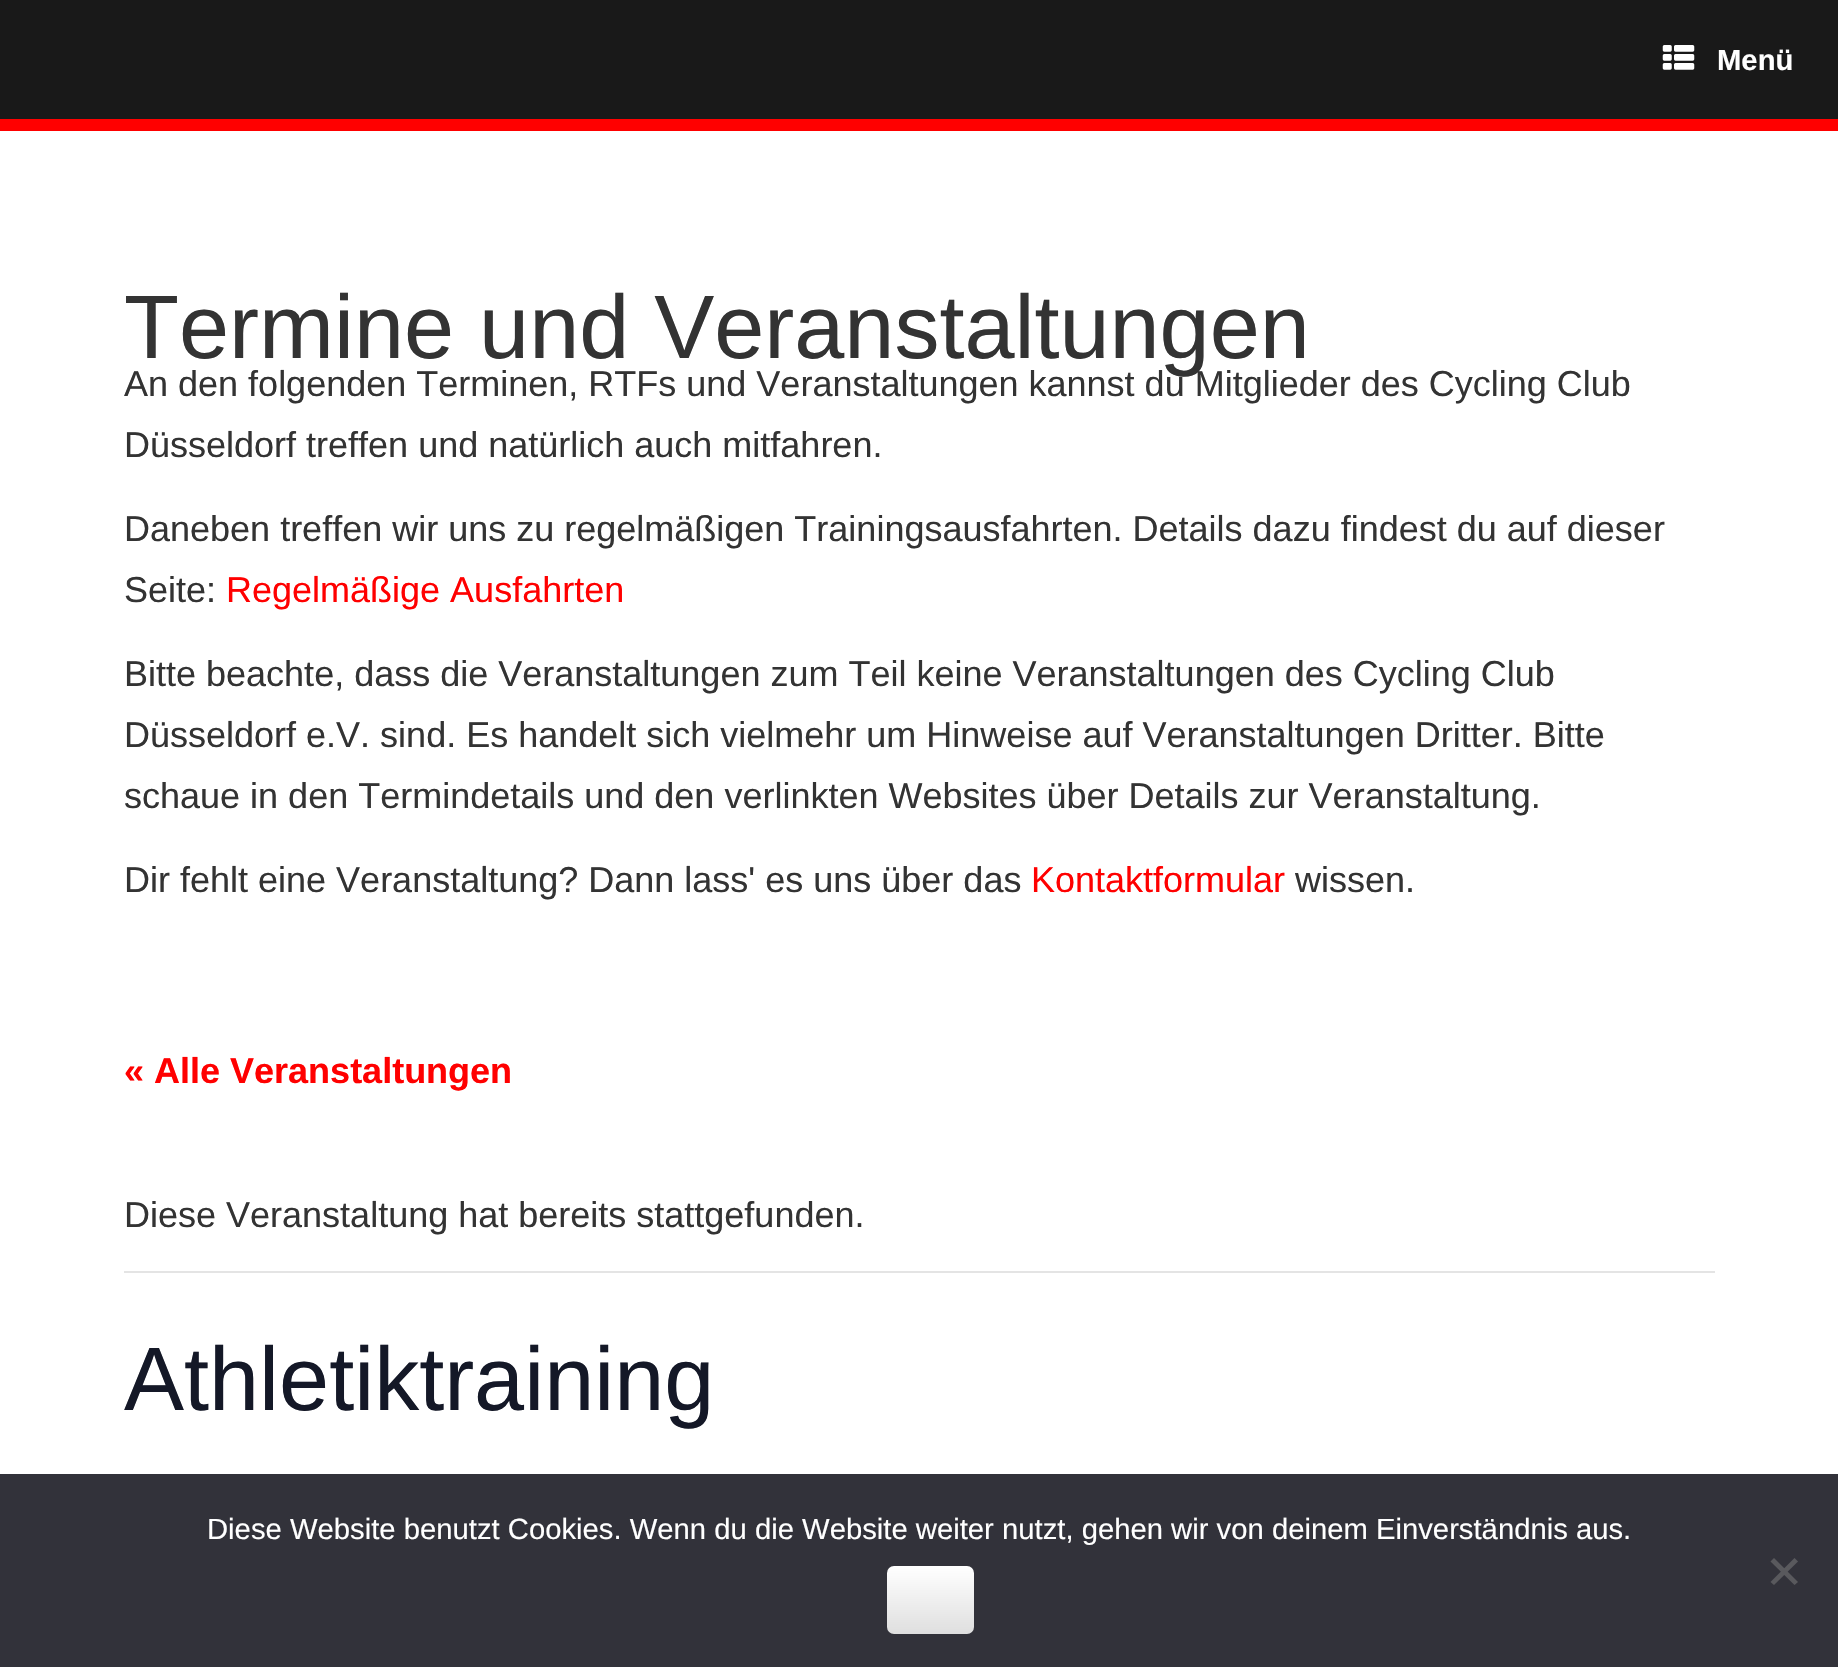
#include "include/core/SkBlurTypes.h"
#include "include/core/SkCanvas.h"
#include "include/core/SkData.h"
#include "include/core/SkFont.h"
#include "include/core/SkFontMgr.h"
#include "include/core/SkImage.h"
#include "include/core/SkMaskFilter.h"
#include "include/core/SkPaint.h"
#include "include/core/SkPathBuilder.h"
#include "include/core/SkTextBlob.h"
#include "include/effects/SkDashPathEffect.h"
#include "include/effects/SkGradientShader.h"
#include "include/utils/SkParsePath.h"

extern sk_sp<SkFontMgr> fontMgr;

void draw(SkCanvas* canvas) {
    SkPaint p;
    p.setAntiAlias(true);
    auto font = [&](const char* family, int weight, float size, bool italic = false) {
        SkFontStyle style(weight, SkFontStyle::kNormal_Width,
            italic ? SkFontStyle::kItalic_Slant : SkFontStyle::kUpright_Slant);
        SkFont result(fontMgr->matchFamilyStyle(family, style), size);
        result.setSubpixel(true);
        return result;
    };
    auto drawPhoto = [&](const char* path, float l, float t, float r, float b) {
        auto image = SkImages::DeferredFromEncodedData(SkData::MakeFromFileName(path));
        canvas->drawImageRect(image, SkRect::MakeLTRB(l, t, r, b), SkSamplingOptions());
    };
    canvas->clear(0xFFFFFFFF);
    p.setColor(0xFF191919);
    canvas->drawRect(SkRect::MakeLTRB(0, 0, 1838, 119), p);
    drawPhoto("media/1.png", 1662, 45, 1695, 70);
    auto font1 = font("Liberation Sans", 700, 29.25f);
    p.setColor(0xFFFFFFFF);
    canvas->drawString("Menü", 1717, 70, font1, p);
    p.setColor(0xFFFF0000);
    canvas->drawRect(SkRect::MakeLTRB(0, 119, 1838, 131), p);
    auto font2 = font("Liberation Sans", 400, 90);
    p.setColor(0xFF333333);
    canvas->drawString("Termine und Veranstaltungen", 124, 358, font2, p);
    auto font3 = font("Liberation Sans", 400, 36);
    {
        const struct { const char* s; float x, y; } items[] = {
            {"An den folgenden Terminen, RTFs und Veranstaltungen kannst du Mitglieder des Cycling Club", 124, 396},
            {"Düsseldorf treffen und natürlich auch mitfahren.", 124, 457},
            {"Daneben treffen wir uns zu regelmäßigen Trainingsausfahrten. Details dazu findest du auf dieser", 124, 541},
            {"Seite:", 124, 602},
        };
        for (auto [s, x, y] : items) {
            canvas->drawString(s, x, y, font3, p);
        }
    }
    p.setColor(0xFFFF0000);
    canvas->drawString("Regelmäßige Ausfahrten", 226, 602, font3, p);
    p.setColor(0xFF333333);
    {
        const struct { const char* s; float x, y; } items[] = {
            {"Bitte beachte, dass die Veranstaltungen zum Teil keine Veranstaltungen des Cycling Club", 124, 686},
            {"Düsseldorf e.V. sind. Es handelt sich vielmehr um Hinweise auf Veranstaltungen Dritter. Bitte", 124, 747},
            {"schaue in den Termindetails und den verlinkten Websites über Details zur Veranstaltung.", 124, 808},
            {"Dir fehlt eine Veranstaltung? Dann lass' es uns über das", 124, 892},
        };
        for (auto [s, x, y] : items) {
            canvas->drawString(s, x, y, font3, p);
        }
    }
    p.setColor(0xFFFF0000);
    canvas->drawString("Kontaktformular", 1031, 892, font3, p);
    p.setColor(0xFF333333);
    canvas->drawString("wissen.", 1295, 892, font3, p);
    auto font4 = font("Liberation Sans", 700, 36);
    p.setColor(0xFFFF0000);
    canvas->drawString("« Alle Veranstaltungen", 124, 1083, font4, p);
    p.setColor(0xFFE4E4E4);
    canvas->drawRect(SkRect::MakeLTRB(124, 1271, 1715, 1273), p);
    p.setColor(0xFF333333);
    canvas->drawString("Diese Veranstaltung hat bereits stattgefunden.", 124, 1227, font3, p);
    p.setColor(0xFF141827);
    canvas->drawString("Athletiktraining", 124, 1410, font2, p);
    p.setColor(0xFF32323A);
    canvas->drawRect(SkRect::MakeLTRB(0, 1474, 1838, 1667), p);
    auto font5 = font("Liberation Sans", 400, 29.25f);
    p.setColor(0xFFFFFFFF);
    canvas->drawString("Diese Website benutzt Cookies. Wenn du die Website weiter nutzt, gehen wir von deinem Einverständnis aus.", 207, 1539, font5, p);
    {
        const SkColor colors[] = {0xFFDFDFDF, 0xFFFFFFFF};
        const float stops[] = {0, 1};
        const SkPoint ends[] = {{887, 1634}, {887, 1566}};
        p.setShader(SkGradientShader::MakeLinear(ends, colors, stops, 2, SkTileMode::kClamp));
        p.setAlpha(255);
    }
    canvas->drawRoundRect(SkRect::MakeLTRB(887, 1566, 974, 1634), 7, 7, p);
    p.setShader(nullptr);
    p.setColor(0xFF59595D);
    canvas->drawPath(SkPathBuilder().moveTo(1794.5f, 1558).lineTo(1798, 1561.5f).lineTo(1774, 1585).lineTo(1770.5f, 1582).close().detach(), p);
    canvas->drawPath(SkPathBuilder().moveTo(1770.5f, 1561.5f).lineTo(1774, 1558).lineTo(1798, 1582).lineTo(1794.5f, 1585).close().detach(), p);
}
